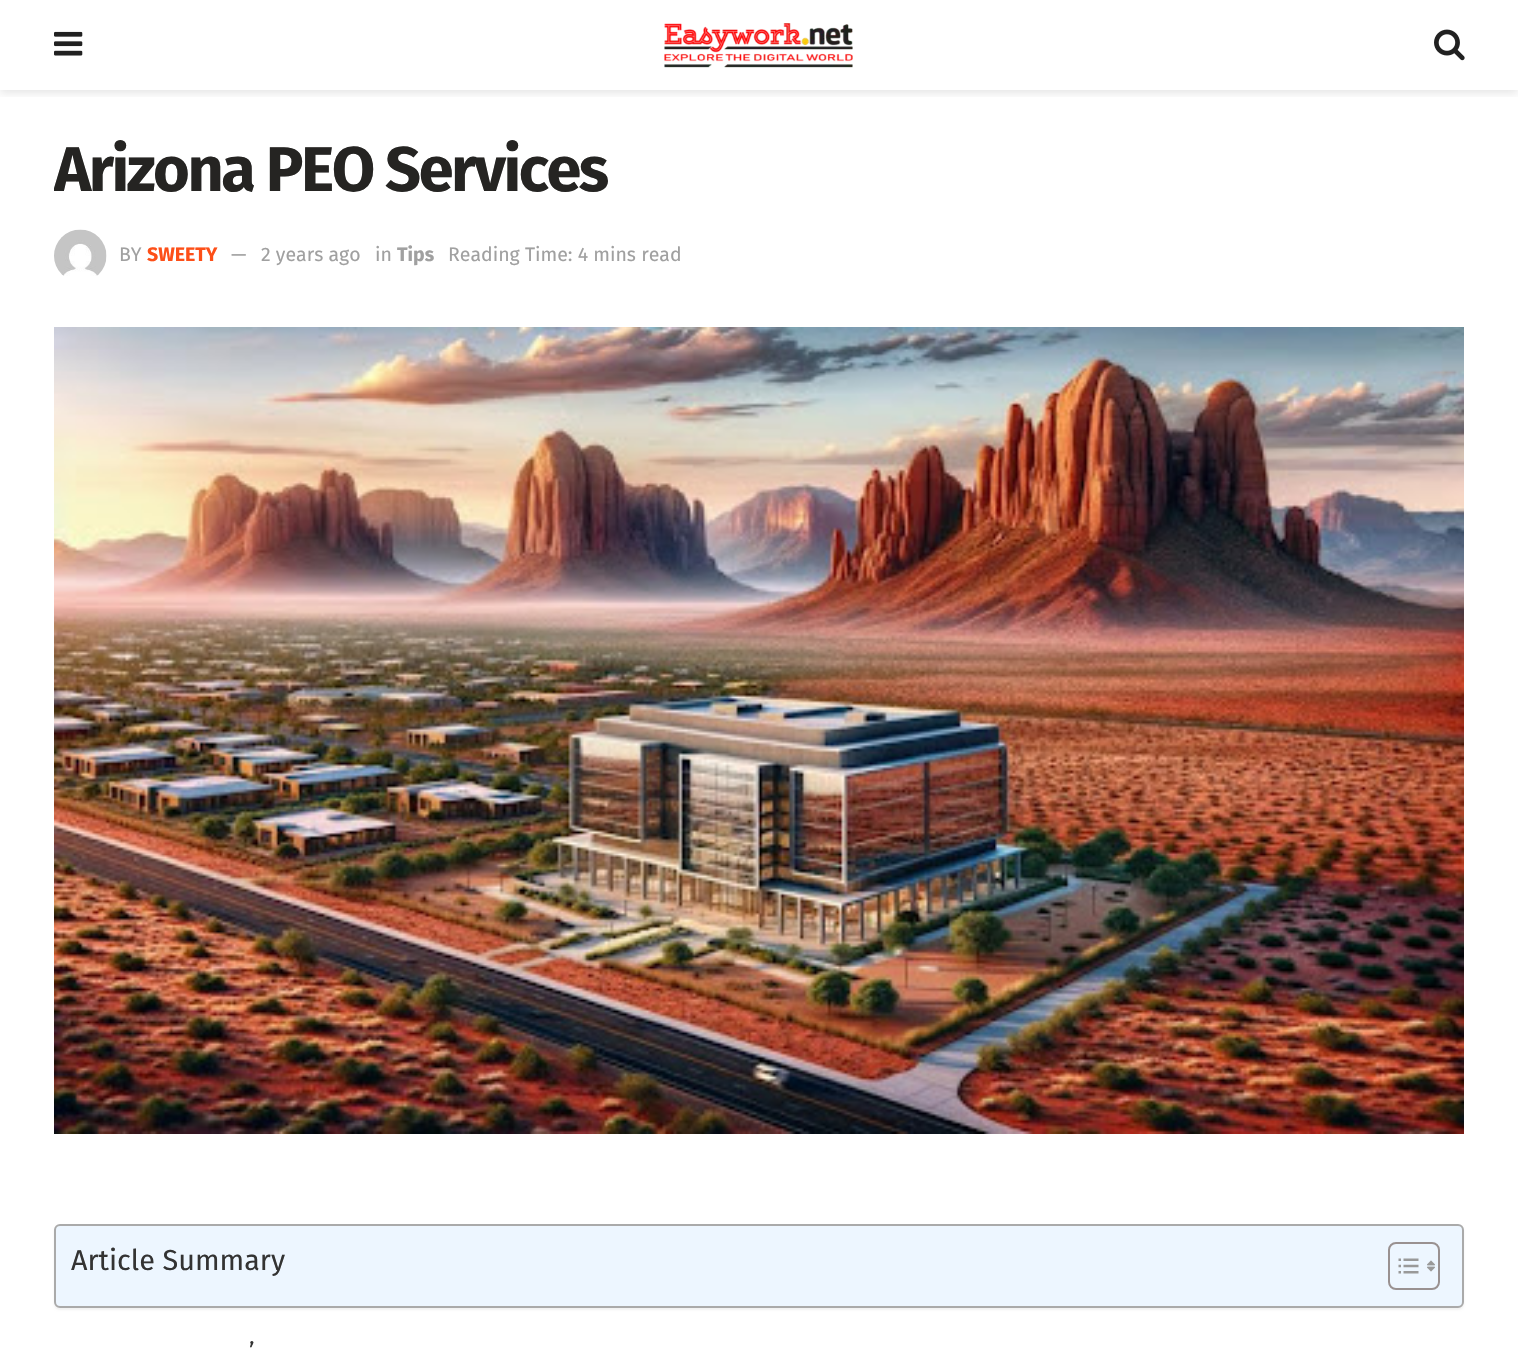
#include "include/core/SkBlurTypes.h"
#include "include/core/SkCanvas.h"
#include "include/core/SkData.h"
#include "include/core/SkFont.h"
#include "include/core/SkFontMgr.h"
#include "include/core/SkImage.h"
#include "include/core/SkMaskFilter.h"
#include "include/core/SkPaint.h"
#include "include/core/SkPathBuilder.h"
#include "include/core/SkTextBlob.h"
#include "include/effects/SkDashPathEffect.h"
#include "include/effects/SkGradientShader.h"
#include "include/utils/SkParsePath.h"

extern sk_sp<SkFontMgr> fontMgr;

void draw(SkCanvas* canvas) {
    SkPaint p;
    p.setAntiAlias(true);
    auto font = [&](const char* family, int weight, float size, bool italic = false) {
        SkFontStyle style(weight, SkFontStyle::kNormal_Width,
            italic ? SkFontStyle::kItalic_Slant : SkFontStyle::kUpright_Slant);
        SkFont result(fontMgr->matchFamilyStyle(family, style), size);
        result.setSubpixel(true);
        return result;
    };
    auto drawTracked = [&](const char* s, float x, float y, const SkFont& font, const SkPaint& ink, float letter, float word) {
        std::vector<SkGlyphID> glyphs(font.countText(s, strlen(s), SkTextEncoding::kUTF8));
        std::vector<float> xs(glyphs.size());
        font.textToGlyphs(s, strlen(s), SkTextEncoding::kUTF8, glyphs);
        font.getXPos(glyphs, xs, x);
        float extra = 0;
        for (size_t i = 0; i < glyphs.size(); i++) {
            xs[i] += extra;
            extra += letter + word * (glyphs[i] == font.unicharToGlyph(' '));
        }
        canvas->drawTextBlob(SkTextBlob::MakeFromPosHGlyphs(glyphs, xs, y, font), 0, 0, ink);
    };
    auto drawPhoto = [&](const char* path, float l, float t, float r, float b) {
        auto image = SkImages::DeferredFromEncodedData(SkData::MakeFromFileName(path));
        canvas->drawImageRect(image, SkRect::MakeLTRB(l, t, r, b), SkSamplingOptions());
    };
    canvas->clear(0xFFFFFFFF);
    canvas->save();
    canvas->clipRect(SkRect::MakeLTRB(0, 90, 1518, 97));
    p.setColor(0x1A000000);
    p.setMaskFilter(SkMaskFilter::MakeBlur(kNormal_SkBlurStyle, 4.5f));
    canvas->drawRect(SkRect::MakeLTRB(0, 3, 1518, 93), p);
    p.setMaskFilter(nullptr);
    canvas->restore();
    drawPhoto("media/1.png", 54, 31, 83, 56);
    drawPhoto("media/2.png", 664, 23, 853, 68);
    drawPhoto("media/3.png", 1434, 29, 1465, 61);
    canvas->save();
    canvas->clipRect(SkRect::MakeLTRB(54, 135, 1464, 204));
    auto font1 = font("Fira Sans", 700, 63);
    p.setColor(0xFF252422);
    drawTracked("Arizona PEO Services", 54, 191, font1, p, -2.5f, 0);
    canvas->restore();
    drawPhoto("media/4.png", 54, 229, 107, 276);
    auto font2 = font("Fira Sans", 400, 19.5f);
    p.setColor(0xFFA0A0A0);
    canvas->drawString("BY", 119, 261, font2, p);
    auto font3 = font("Fira Sans", 700, 19.5f);
    p.setColor(0xFFFD4F18);
    canvas->drawString("SWEETY", 147, 261, font3, p);
    p.setColor(0xFFA0A0A0);
    {
        const struct { const char* s; float x, y; } items[] = {
            {"—", 231, 261},
            {"2 years ago", 261, 261},
            {"in", 375, 261},
        };
        for (auto [s, x, y] : items) {
            canvas->drawString(s, x, y, font2, p);
        }
    }
    canvas->drawString("Tips", 397, 261, font3, p);
    canvas->drawString("Reading Time: 4 mins read", 448, 261, font2, p);
    drawPhoto("media/5.png", 54, 327, 1464, 1134);
    p.setColor(0x0D000000);
    p.setMaskFilter(SkMaskFilter::MakeBlur(kNormal_SkBlurStyle, 1));
    canvas->drawRoundRect(SkRect::MakeLTRB(54, 1226, 1464, 1310), 6, 6, p);
    p.setMaskFilter(nullptr);
    p.setColor(0xFFEDF6FF);
    canvas->drawRoundRect(SkRect::MakeLTRB(55, 1225, 1463, 1307), 5, 5, p);
    p.setStyle(SkPaint::kStroke_Style);
    p.setStrokeWidth(2);
    p.setColor(0xFFAAAAAA);
    canvas->drawRoundRect(SkRect::MakeLTRB(55, 1225, 1463, 1307), 5, 5, p);
    auto font4 = font("Fira Sans", 400, 28.75f);
    p.setStyle(SkPaint::kFill_Style);
    p.setColor(0xFF333333);
    canvas->drawString("Article Summary", 71, 1270, font4, p);
    p.setStyle(SkPaint::kStroke_Style);
    p.setColor(0xFF999191);
    canvas->drawRoundRect(SkRect::MakeLTRB(1389, 1243, 1439, 1289), 7, 7, p);
    drawPhoto("media/6.png", 1398, 1258, 1419, 1274);
    drawPhoto("media/7.png", 1427, 1260, 1435, 1272);
    auto font5 = font("Fira Sans", 400, 24);
    p.setStyle(SkPaint::kFill_Style);
    p.setColor(0xFF333333);
    drawTracked("’", 249, 1359, font5, p, 0, 4);
}
